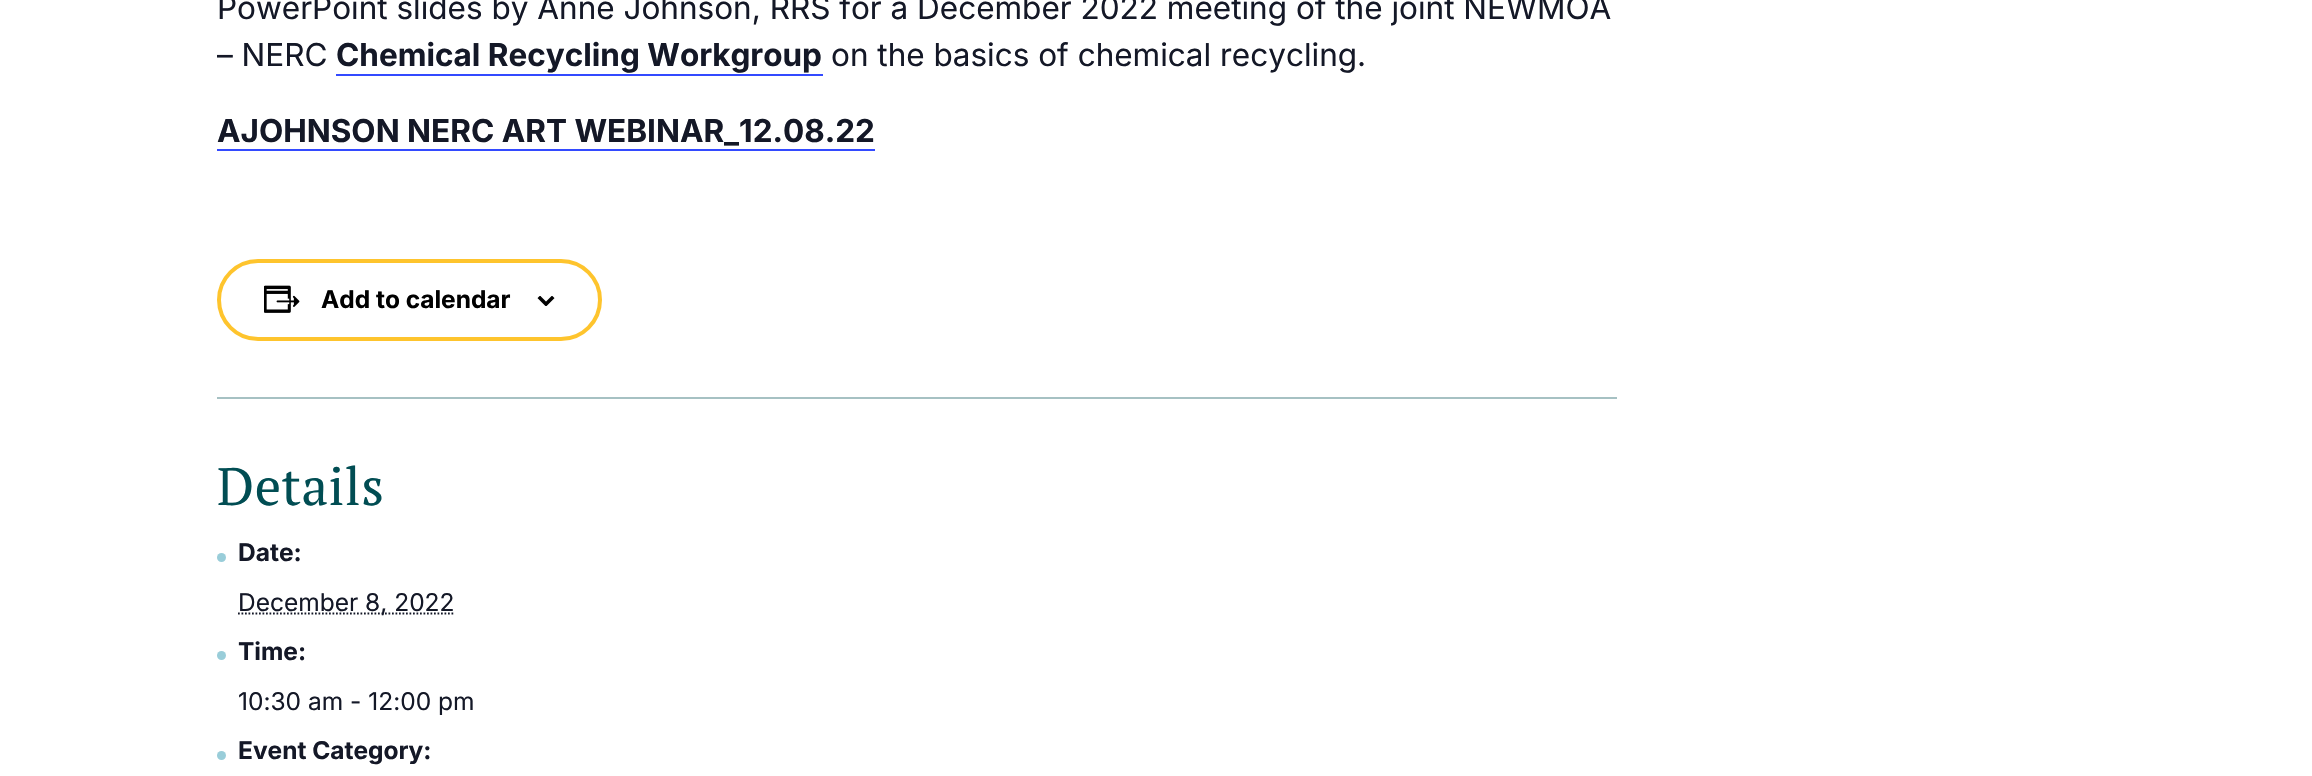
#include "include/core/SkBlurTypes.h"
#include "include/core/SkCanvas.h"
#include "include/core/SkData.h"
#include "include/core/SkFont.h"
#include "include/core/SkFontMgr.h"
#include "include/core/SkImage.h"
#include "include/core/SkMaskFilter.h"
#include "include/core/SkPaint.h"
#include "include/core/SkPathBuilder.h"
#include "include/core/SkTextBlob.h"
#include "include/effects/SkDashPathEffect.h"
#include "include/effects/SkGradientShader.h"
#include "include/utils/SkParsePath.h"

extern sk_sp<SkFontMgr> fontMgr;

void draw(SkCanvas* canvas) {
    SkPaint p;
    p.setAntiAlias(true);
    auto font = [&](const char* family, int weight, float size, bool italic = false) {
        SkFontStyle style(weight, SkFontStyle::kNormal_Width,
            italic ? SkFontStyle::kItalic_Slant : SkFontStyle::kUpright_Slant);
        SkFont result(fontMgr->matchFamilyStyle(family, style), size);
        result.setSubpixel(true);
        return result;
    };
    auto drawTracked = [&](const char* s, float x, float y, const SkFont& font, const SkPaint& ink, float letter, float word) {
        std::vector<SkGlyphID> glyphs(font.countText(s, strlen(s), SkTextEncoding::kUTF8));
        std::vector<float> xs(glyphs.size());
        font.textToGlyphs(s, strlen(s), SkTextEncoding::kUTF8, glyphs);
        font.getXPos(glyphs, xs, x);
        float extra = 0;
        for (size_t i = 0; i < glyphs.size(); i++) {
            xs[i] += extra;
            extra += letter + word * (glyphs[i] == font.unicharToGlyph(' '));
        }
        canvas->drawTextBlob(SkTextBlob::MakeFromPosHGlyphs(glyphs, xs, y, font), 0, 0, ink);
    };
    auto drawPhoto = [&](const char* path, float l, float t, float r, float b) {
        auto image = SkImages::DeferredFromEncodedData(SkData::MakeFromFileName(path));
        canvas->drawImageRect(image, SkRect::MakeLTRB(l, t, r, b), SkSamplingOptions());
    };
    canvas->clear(0xFFFFFFFF);
    auto font1 = font("Inter", 400, 31.5f);
    p.setColor(0xFF141827);
    canvas->drawString("PowerPoint slides by Anne Johnson, RRS for a December 2022 meeting of the joint NEWMOA", 217, 19, font1, p);
    canvas->drawString("– NERC", 217, 66, font1, p);
    auto font2 = font("Inter", 700, 31.5f);
    canvas->drawString("Chemical Recycling Workgroup", 336, 66, font2, p);
    p.setColor(0xFF334AFF);
    canvas->drawRect(SkRect::MakeLTRB(336, 74, 823, 76), p);
    p.setColor(0xFF141827);
    canvas->drawString("on the basics of chemical recycling.", 831, 66, font1, p);
    canvas->drawString("AJOHNSON NERC ART WEBINAR_12.08.22", 217, 142, font2, p);
    p.setColor(0xFF334AFF);
    canvas->drawRect(SkRect::MakeLTRB(217, 149, 875, 151), p);
    p.setStyle(SkPaint::kStroke_Style);
    p.setStrokeWidth(4);
    p.setColor(0xFFFEC42D);
    canvas->drawRoundRect(SkRect::MakeLTRB(219, 261, 600, 339), 39, 39, p);
    drawPhoto("media/1.png", 264, 285, 300, 313);
    auto font3 = font("Inter", 700, 24.5f);
    p.setStyle(SkPaint::kFill_Style);
    p.setColor(0xFF000000);
    canvas->drawString("Add to calendar", 321, 308, font3, p);
    drawPhoto("media/2.png", 537, 296, 555, 306);
    p.setColor(0xFFA6C1C3);
    canvas->drawRect(SkRect::MakeLTRB(217, 397, 1617, 399), p);
    auto font4 = font("PT Serif", 400, 52.5f);
    p.setColor(0xFF014D53);
    drawTracked("Details", 217, 505, font4, p, 0.5f, 0);
    p.setColor(0xFF99CDD9);
    canvas->drawCircle(221.5f, 557.5f, 4.5f, p);
    p.setColor(0xFF141827);
    canvas->drawString("Date:", 238, 561, font3, p);
    p.setStyle(SkPaint::kStroke_Style);
    p.setStrokeWidth(1.8f);
    p.setPathEffect(SkDashPathEffect::Make({{1.75f, 1.75f}}, 0));
    canvas->drawPath(SkPathBuilder().moveTo(238, 613.5f).lineTo(454.5f, 613.5f).detach(), p);
    p.setPathEffect(nullptr);
    auto font5 = font("Inter", 400, 24.5f);
    p.setStyle(SkPaint::kFill_Style);
    canvas->drawString("December 8, 2022", 238, 611, font5, p);
    p.setColor(0xFF99CDD9);
    canvas->drawCircle(221.5f, 655.5f, 4.5f, p);
    p.setColor(0xFF141827);
    canvas->drawString("Time:", 238, 660, font3, p);
    canvas->drawString("10:30 am - 12:00 pm", 238, 710, font5, p);
    p.setColor(0xFF99CDD9);
    canvas->drawCircle(221.5f, 755.5f, 4.5f, p);
    p.setColor(0xFF141827);
    canvas->drawString("Event Category:", 238, 759, font3, p);
}
